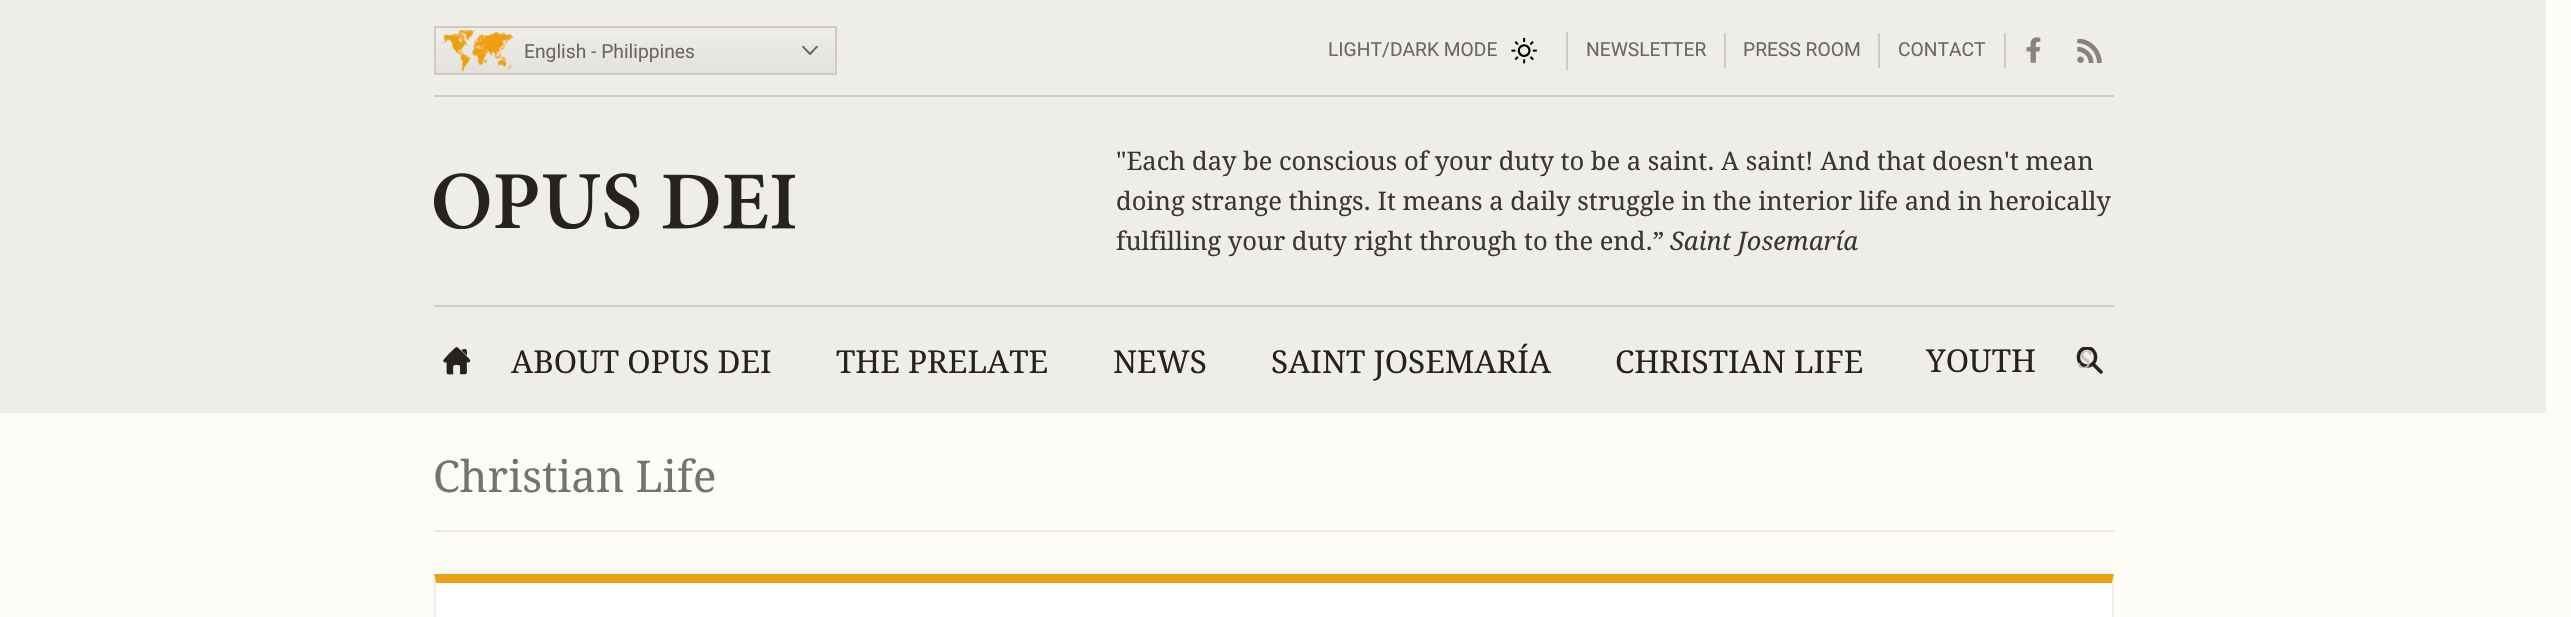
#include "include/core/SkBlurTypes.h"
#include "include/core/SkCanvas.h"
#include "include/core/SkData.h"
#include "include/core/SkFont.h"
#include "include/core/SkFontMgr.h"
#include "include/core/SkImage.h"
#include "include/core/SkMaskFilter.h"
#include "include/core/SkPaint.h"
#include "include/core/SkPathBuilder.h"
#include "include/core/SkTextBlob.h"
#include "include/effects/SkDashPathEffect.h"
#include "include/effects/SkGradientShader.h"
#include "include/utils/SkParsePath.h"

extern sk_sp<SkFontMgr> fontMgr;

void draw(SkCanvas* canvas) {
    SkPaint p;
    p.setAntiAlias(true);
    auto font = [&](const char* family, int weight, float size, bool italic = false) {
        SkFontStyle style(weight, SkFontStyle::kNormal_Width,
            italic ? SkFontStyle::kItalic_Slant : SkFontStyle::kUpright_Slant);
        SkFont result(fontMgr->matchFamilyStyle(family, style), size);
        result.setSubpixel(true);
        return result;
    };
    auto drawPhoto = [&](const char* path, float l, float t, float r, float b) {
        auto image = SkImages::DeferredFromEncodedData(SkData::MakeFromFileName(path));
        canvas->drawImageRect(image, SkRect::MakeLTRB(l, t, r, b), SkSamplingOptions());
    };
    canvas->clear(0xFFFEFCF6);
    p.setColor(0xFFEFEDE7);
    canvas->drawRect(SkRect::MakeLTRB(0, 0, 2546, 413), p);
    p.setColor(0xFFCECBC4);
    canvas->drawRect(SkRect::MakeLTRB(434, 95, 2114, 97), p);
    {
        const SkColor colors[] = {0xFFEFEDE7, 0xFFE3E1DB};
        const float stops[] = {0, 1};
        const SkPoint ends[] = {{635, 28}, {635, 74}};
        p.setShader(SkGradientShader::MakeLinear(ends, colors, stops, 2, SkTileMode::kClamp));
        p.setAlpha(255);
    }
    canvas->drawRect(SkRect::MakeLTRB(436, 38, 835, 73), p);
    p.setStyle(SkPaint::kStroke_Style);
    p.setStrokeWidth(2);
    p.setShader(nullptr);
    p.setColor(0xFFCECBC4);
    canvas->drawRect(SkRect::MakeLTRB(435, 27, 836, 74), p);
    drawPhoto("media/1.png", 442, 30, 514, 72);
    canvas->save();
    canvas->clipRect(SkRect::MakeLTRB(802, 46, 819, 56));
    p.setStrokeWidth(1.9f);
    p.setStrokeCap(SkPaint::kRound_Cap);
    p.setStrokeJoin(SkPaint::kRound_Join);
    p.setColor(0xFF6B6864);
    canvas->drawPath(SkPathBuilder().moveTo(817, 46.5f).lineTo(810, 54).lineTo(803, 46.5f).detach(), p);
    canvas->restore();
    auto font1 = font("Roboto", 400, 19.25f);
    p.setStyle(SkPaint::kFill_Style);
    canvas->drawString("English - Philippines", 524, 58, font1, p);
    p.setColor(0xFFCECBC4);
    canvas->drawRect(SkRect::MakeLTRB(1566, 32, 1568, 70), p);
    p.setColor(0xFF6B6864);
    canvas->drawString("LIGHT/DARK MODE", 1328, 56, font1, p);
    drawPhoto("media/2.png", 1511, 37, 1537, 64);
    p.setColor(0xFFCECBC4);
    canvas->drawRect(SkRect::MakeLTRB(1724, 33, 1726, 68), p);
    p.setColor(0xFF6B6864);
    canvas->drawString("NEWSLETTER", 1586, 56, font1, p);
    p.setColor(0xFFCECBC4);
    canvas->drawRect(SkRect::MakeLTRB(1878, 33, 1880, 68), p);
    p.setColor(0xFF6B6864);
    canvas->drawString("PRESS ROOM", 1743, 56, font1, p);
    p.setColor(0xFFCECBC4);
    canvas->drawRect(SkRect::MakeLTRB(2004, 33, 2006, 68), p);
    p.setColor(0xFF6B6864);
    canvas->drawString("CONTACT", 1898, 56, font1, p);
    drawPhoto("media/3.png", 2026, 37, 2041, 63);
    drawPhoto("media/4.png", 2077, 39, 2102, 63);
    p.setColor(0xFFCECBC4);
    canvas->drawRect(SkRect::MakeLTRB(434, 305, 2114, 307), p);
    drawPhoto("media/5.png", 434, 173, 795, 229);
    auto font2 = font("Droid Serif", 400, 25.5f);
    p.setColor(0xFF3A3632);
    {
        const struct { const char* s; float x, y; } items[] = {
            {"\"Each day be conscious of your duty to be a saint. A saint! And that doesn't mean", 1116, 170},
            {"doing strange things. It means a daily struggle in the interior life and in heroically", 1116, 210},
            {"fulfilling your duty right through to the end.”", 1116, 250},
        };
        for (auto [s, x, y] : items) {
            canvas->drawString(s, x, y, font2, p);
        }
    }
    auto font3 = font("Droid Serif", 400, 25.5f, true);
    canvas->drawString("Saint Josemaría", 1670, 250, font3, p);
    drawPhoto("media/6.png", 443, 347, 471, 375);
    auto font4 = font("Droid Serif", 400, 31.5f);
    p.setColor(0xFF26221E);
    {
        const struct { const char* s; float x, y; } items[] = {
            {"ABOUT OPUS DEI", 511, 373},
            {"THE PRELATE", 836, 373},
            {"NEWS", 1113, 373},
            {"SAINT JOSEMARÍA", 1271, 373},
            {"CHRISTIAN LIFE", 1615, 373},
            {"YOUTH", 1926, 372},
        };
        for (auto [s, x, y] : items) {
            canvas->drawString(s, x, y, font4, p);
        }
    }
    canvas->save();
    canvas->clipRect(SkRect::MakeLTRB(2076, 347, 2104, 375));
    p.setStyle(SkPaint::kStroke_Style);
    p.setStrokeWidth(3.5f);
    p.setStrokeJoin(SkPaint::kMiter_Join);
    canvas->drawPath(SkPathBuilder().moveTo(2093, 364).lineTo(2101, 372).moveTo(2087, 348).cubicTo(2098.5f, 348, 2098.5f, 366, 2087, 366).cubicTo(2075.5f, 366, 2075.5f, 348, 2087, 348).close().detach(), p);
    canvas->restore();
    auto font5 = font("Droid Serif", 400, 24, true);
    p.setStyle(SkPaint::kFill_Style);
    p.setColor(0xFFC1BFB9);
    canvas->drawString("S", 2078, 368, font5, p);
    p.setColor(0xFFECE9E3);
    canvas->drawRect(SkRect::MakeLTRB(434, 530, 2114, 532), p);
    auto font6 = font("Droid Serif", 400, 43.75f);
    p.setColor(0xFF737373);
    canvas->drawString("Christian Life", 433, 492, font6, p);
    p.setColor(0xFFFFFFFF);
    canvas->drawRect(SkRect::MakeLTRB(436, 583, 2112, 617), p);
    p.setColor(0xFFEF9F13);
    canvas->drawPath(SkPathBuilder().moveTo(434, 574).lineTo(2114, 574).lineTo(2112, 583).lineTo(436, 583).close().detach(), p);
    p.setColor(0xFFEFEDE7);
    canvas->drawPath(SkPathBuilder().moveTo(2114, 574).lineTo(2114, 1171).lineTo(2112, 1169).lineTo(2112, 583).close().detach(), p);
    canvas->drawPath(SkPathBuilder().moveTo(434, 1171).lineTo(434, 574).lineTo(436, 583).lineTo(436, 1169).close().detach(), p);
}
